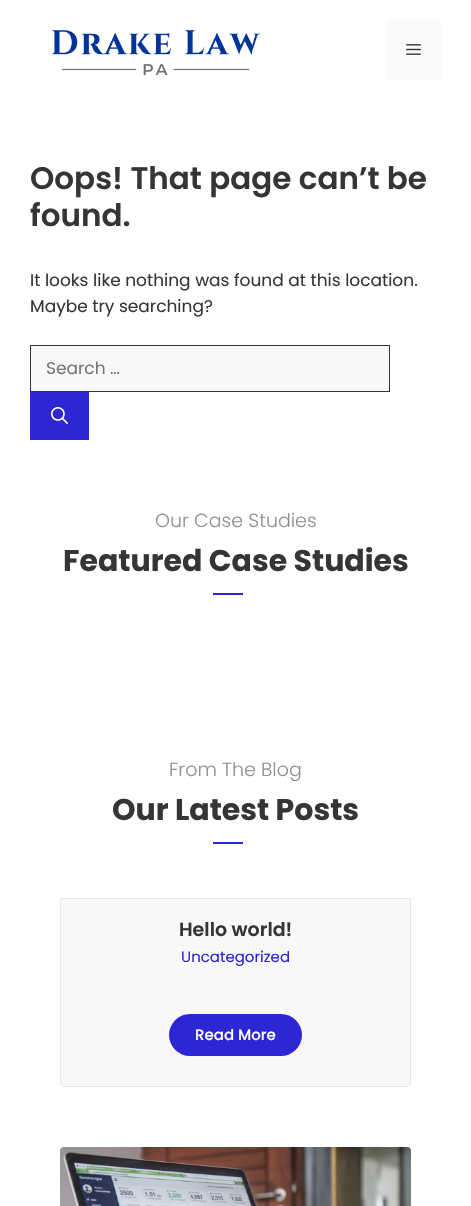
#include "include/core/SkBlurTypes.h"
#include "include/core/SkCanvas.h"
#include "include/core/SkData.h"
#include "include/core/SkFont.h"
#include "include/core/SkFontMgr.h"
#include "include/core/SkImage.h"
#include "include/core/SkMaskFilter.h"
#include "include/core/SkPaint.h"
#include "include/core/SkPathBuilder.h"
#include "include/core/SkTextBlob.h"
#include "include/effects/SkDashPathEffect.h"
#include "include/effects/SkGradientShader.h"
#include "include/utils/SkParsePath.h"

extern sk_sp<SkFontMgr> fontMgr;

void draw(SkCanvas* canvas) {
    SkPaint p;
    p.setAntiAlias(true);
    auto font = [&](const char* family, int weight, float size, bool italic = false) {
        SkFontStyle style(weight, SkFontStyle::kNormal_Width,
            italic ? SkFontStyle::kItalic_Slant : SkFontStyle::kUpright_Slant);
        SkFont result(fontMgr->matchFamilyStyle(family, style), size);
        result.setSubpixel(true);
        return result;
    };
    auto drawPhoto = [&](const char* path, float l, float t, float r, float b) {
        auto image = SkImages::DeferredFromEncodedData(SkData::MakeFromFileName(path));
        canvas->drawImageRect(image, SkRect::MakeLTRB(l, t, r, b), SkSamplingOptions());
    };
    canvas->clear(0xFFFFFFFF);
    drawPhoto("media/1.png", 52, 30, 261, 75);
    p.setColor(0xFFFAFAFA);
    canvas->drawRect(SkRect::MakeLTRB(386, 20, 441, 80), p);
    drawPhoto("media/2.png", 406, 44, 421, 55);
    auto font1 = font("Poppins", 600, 31);
    p.setColor(0xFF353535);
    canvas->drawString("Oops! That page can’t be", 30, 189, font1, p);
    canvas->drawString("found.", 30, 226, font1, p);
    auto font2 = font("Poppins", 400, 17);
    canvas->drawString("It looks like nothing was found at this location.", 30, 286, font2, p);
    canvas->drawString("Maybe try searching?", 30, 312, font2, p);
    p.setColor(0xFFF8F8F8);
    canvas->drawRect(SkRect::MakeLTRB(30.5f, 345.5f, 389.5f, 391.5f), p);
    p.setStyle(SkPaint::kStroke_Style);
    p.setStrokeWidth(1);
    p.setColor(0xFF353535);
    canvas->drawRect(SkRect::MakeLTRB(30.5f, 345.5f, 389.5f, 391.5f), p);
    p.setStyle(SkPaint::kFill_Style);
    p.setColor(0xFF757575);
    canvas->drawString("Search …", 46, 374, font2, p);
    p.setColor(0xFF2C26D4);
    canvas->drawRect(SkRect::MakeLTRB(30, 392, 89, 440), p);
    drawPhoto("media/3.png", 51, 407, 68, 424);
    auto font3 = font("Poppins", 300, 19);
    p.setColor(0xFF8D9297);
    canvas->drawString("Our Case Studies", 155, 527, font3, p);
    auto font4 = font("Poppins", 700, 30);
    p.setColor(0xFF353535);
    canvas->drawString("Featured Case Studies", 63, 571, font4, p);
    p.setColor(0xFF2C26D4);
    canvas->drawRect(SkRect::MakeLTRB(213, 593, 243, 595), p);
    p.setColor(0xFF8D9297);
    canvas->drawString("From The Blog", 169, 776, font3, p);
    p.setColor(0xFF353535);
    canvas->drawString("Our Latest Posts", 112, 820, font4, p);
    p.setColor(0xFF2C26D4);
    canvas->drawRect(SkRect::MakeLTRB(213, 842, 243, 844), p);
    p.setColor(0xFFF8F8F8);
    canvas->drawPath(SkPathBuilder().moveTo(60.5f, 898.5f).lineTo(410.5f, 898.5f).lineTo(410.5f, 1083).cubicTo(410.5f, 1085, 409, 1086.5f, 407, 1086.5f).lineTo(64, 1086.5f).cubicTo(62, 1086.5f, 60.5f, 1085, 60.5f, 1083).close().detach(), p);
    p.setStyle(SkPaint::kStroke_Style);
    p.setColor(0xFFE6E6E6);
    canvas->drawPath(SkPathBuilder().moveTo(60.5f, 898.5f).lineTo(410.5f, 898.5f).lineTo(410.5f, 1083).cubicTo(410.5f, 1085, 409, 1086.5f, 407, 1086.5f).lineTo(64, 1086.5f).cubicTo(62, 1086.5f, 60.5f, 1085, 60.5f, 1083).close().detach(), p);
    auto font5 = font("Poppins", 600, 19);
    p.setStyle(SkPaint::kFill_Style);
    p.setColor(0xFF353535);
    canvas->drawString("Hello world!", 179, 936, font5, p);
    auto font6 = font("Poppins", 400, 15);
    p.setColor(0xFF2C26D4);
    canvas->drawString("Uncategorized", 181, 962, font6, p);
    canvas->drawRoundRect(SkRect::MakeLTRB(169, 1014, 302, 1056), 21, 21, p);
    auto font7 = font("Poppins", 500, 15);
    p.setColor(0xFFFFFFFF);
    canvas->drawString("Read More", 195, 1040, font7, p);
    drawPhoto("media/4.png", 60, 1147, 411, 1206);
}
